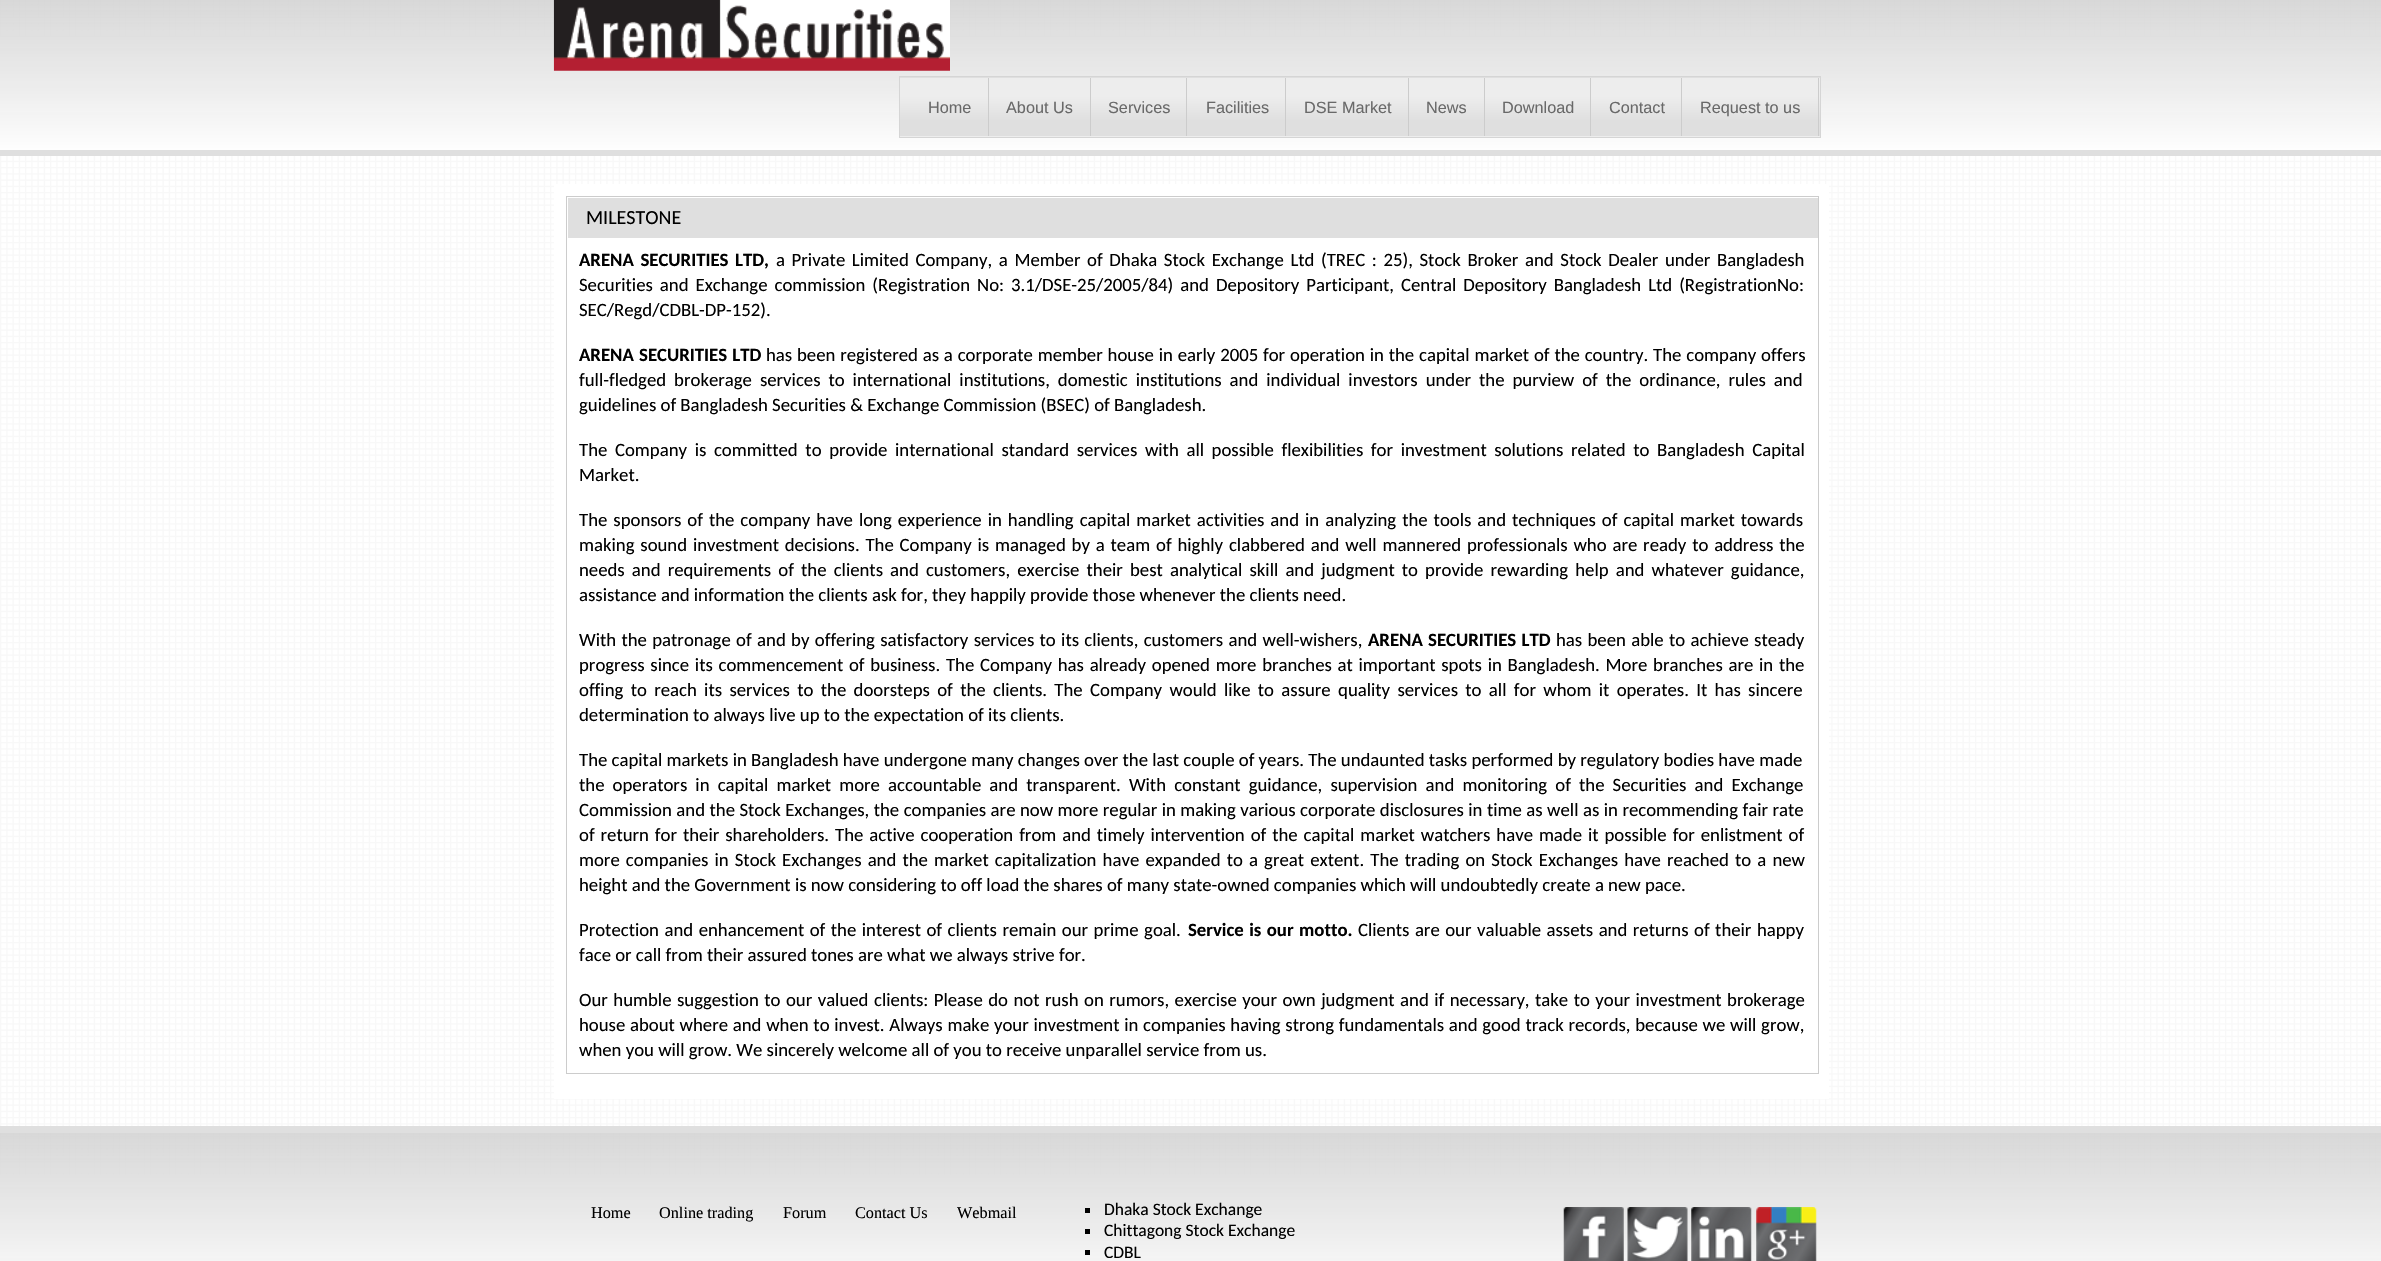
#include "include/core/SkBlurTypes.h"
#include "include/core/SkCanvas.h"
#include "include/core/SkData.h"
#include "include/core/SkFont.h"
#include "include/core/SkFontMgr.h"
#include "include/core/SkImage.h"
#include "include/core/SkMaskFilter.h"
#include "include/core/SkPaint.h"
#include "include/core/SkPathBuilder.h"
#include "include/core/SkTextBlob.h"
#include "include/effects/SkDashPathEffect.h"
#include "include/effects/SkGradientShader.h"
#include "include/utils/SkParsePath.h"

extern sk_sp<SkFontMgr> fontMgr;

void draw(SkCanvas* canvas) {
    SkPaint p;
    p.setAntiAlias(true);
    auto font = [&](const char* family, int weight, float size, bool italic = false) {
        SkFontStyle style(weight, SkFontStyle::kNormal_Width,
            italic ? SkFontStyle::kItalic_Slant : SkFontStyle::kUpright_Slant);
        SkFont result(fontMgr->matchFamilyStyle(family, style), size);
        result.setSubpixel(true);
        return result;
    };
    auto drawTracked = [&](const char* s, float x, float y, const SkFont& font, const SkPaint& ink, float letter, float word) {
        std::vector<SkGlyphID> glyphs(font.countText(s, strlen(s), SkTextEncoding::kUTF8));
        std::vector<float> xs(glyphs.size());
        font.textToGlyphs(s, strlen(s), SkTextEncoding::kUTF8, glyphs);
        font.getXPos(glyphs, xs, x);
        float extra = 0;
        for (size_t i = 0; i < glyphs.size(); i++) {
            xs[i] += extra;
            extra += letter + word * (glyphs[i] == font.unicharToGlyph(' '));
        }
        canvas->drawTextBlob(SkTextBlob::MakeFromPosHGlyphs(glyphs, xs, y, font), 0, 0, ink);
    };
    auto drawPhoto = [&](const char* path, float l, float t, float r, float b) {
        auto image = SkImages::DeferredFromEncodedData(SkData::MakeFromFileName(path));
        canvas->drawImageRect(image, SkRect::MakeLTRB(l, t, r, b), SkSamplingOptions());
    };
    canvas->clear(0xFFFFFFFF);
    drawPhoto("media/1.png", 0, 0, 2381, 1261);
    {
        const SkColor colors[] = {0xD6D1D1D1, 0xD6D1D1D1, 0xDEDBDBDB, 0xFFFEFEFE};
        const float stops[] = {0, 0.01f, 0.22f, 1};
        const SkPoint ends[] = {{1191, -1.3f}, {1191, 150}};
        p.setShader(SkGradientShader::MakeLinear(ends, colors, stops, 4, SkTileMode::kClamp));
        p.setAlpha(255);
    }
    canvas->drawRect(SkRect::MakeLTRB(0, 0, 2381, 150), p);
    p.setShader(nullptr);
    p.setColor(0xFFDFDFDF);
    canvas->drawRect(SkRect::MakeLTRB(0, 150, 2381, 156), p);
    drawPhoto("media/2.png", 553, 0, 950, 71);
    {
        const SkColor colors[] = {0xFFEDEDED, 0xFFDFDFDF};
        const float stops[] = {0.33f, 0.75f};
        const SkPoint ends[] = {{1360, 19}, {1360, 78}};
        p.setShader(SkGradientShader::MakeLinear(ends, colors, stops, 2, SkTileMode::kClamp));
        p.setAlpha(255);
    }
    canvas->drawRect(SkRect::MakeLTRB(899, 77, 1821, 78), p);
    {
        const SkColor colors[] = {0xFFEDEDED, 0xFFDFDFDF};
        const float stops[] = {0.33f, 0.75f};
        const SkPoint ends[] = {{1360, 77}, {1360, 136}};
        p.setShader(SkGradientShader::MakeLinear(ends, colors, stops, 2, SkTileMode::kClamp));
        p.setAlpha(255);
    }
    canvas->drawRect(SkRect::MakeLTRB(900, 78, 1820, 136), p);
    {
        const SkColor colors[] = {0xFFEDEDED, 0xFFDFDFDF};
        const float stops[] = {0.33f, 0.75f};
        const SkPoint ends[] = {{1360, 136}, {1360, 195}};
        p.setShader(SkGradientShader::MakeLinear(ends, colors, stops, 2, SkTileMode::kClamp));
        p.setAlpha(255);
    }
    canvas->drawRect(SkRect::MakeLTRB(899, 136, 1821, 137), p);
    p.setStyle(SkPaint::kStroke_Style);
    p.setStrokeWidth(1);
    p.setShader(nullptr);
    p.setColor(0xFFD5D5D5);
    canvas->drawRect(SkRect::MakeLTRB(899.5f, 76.5f, 1820.5f, 137.5f), p);
    p.setStyle(SkPaint::kFill_Style);
    p.setColor(0xFFCCCCCC);
    canvas->drawRect(SkRect::MakeLTRB(988, 78, 989, 136), p);
    auto font1 = font("Liberation Sans", 400, 16.25f);
    p.setColor(0xFF696969);
    canvas->drawString("Home", 928, 113, font1, p);
    p.setColor(0xFFCCCCCC);
    canvas->drawRect(SkRect::MakeLTRB(1090, 78, 1091, 136), p);
    p.setColor(0xFF696969);
    canvas->drawString("About Us", 1006, 113, font1, p);
    p.setColor(0xFFCCCCCC);
    canvas->drawRect(SkRect::MakeLTRB(1186, 78, 1187, 136), p);
    p.setColor(0xFF696969);
    canvas->drawString("Services", 1108, 113, font1, p);
    p.setColor(0xFFCCCCCC);
    canvas->drawRect(SkRect::MakeLTRB(1285, 78, 1286, 136), p);
    p.setColor(0xFF696969);
    canvas->drawString("Facilities", 1206, 113, font1, p);
    p.setColor(0xFFCCCCCC);
    canvas->drawRect(SkRect::MakeLTRB(1408, 78, 1409, 136), p);
    p.setColor(0xFF696969);
    canvas->drawString("DSE Market", 1304, 113, font1, p);
    p.setColor(0xFFCCCCCC);
    canvas->drawRect(SkRect::MakeLTRB(1484, 78, 1485, 136), p);
    p.setColor(0xFF696969);
    canvas->drawString("News", 1426, 113, font1, p);
    p.setColor(0xFFCCCCCC);
    canvas->drawRect(SkRect::MakeLTRB(1590, 78, 1591, 136), p);
    p.setColor(0xFF696969);
    canvas->drawString("Download", 1502, 113, font1, p);
    p.setColor(0xFFCCCCCC);
    canvas->drawRect(SkRect::MakeLTRB(1681, 78, 1682, 136), p);
    p.setColor(0xFF696969);
    canvas->drawString("Contact", 1609, 113, font1, p);
    p.setColor(0xFFCCCCCC);
    canvas->drawRect(SkRect::MakeLTRB(1818, 78, 1819, 136), p);
    p.setColor(0xFF696969);
    canvas->drawString("Request to us", 1700, 113, font1, p);
    p.setColor(0xFFFFFFFF);
    canvas->drawRect(SkRect::MakeLTRB(554, 184, 1829, 1099), p);
    p.setStyle(SkPaint::kStroke_Style);
    p.setColor(0xFFCCCCCC);
    canvas->drawRect(SkRect::MakeLTRB(566.5f, 196.5f, 1818.5f, 1073.5f), p);
    p.setStyle(SkPaint::kFill_Style);
    p.setColor(0xFFDFDFDF);
    canvas->drawRect(SkRect::MakeLTRB(568, 198, 1818, 238), p);
    auto font2 = font("Carlito", 400, 20);
    p.setColor(0xFF000000);
    canvas->drawString("MILESTONE", 586, 224, font2, p);
    auto font3 = font("Carlito", 700, 18.75f);
    drawTracked("ARENA SECURITIES LTD,", 579, 266, font3, p, 0, 2.4f);
    auto font4 = font("Carlito", 400, 18.75f);
    drawTracked("a Private Limited Company, a Member of Dhaka Stock Exchange Ltd (TREC : 25), Stock Broker and Stock Dealer under Bangladesh", 776, 266, font4, p, 0, 2.4f);
    drawTracked("Securities and Exchange commission (Registration No: 3.1/DSE-25/2005/84) and Depository Participant, Central Depository Bangladesh Ltd (RegistrationNo:", 579, 291, font4, p, 0, 2.75f);
    canvas->drawString("SEC/Regd/CDBL-DP-152).", 579, 316, font4, p);
    drawTracked("ARENA SECURITIES LTD", 579, 361, font3, p, 0, 1);
    drawTracked("has been registered as a corporate member house in early 2005 for operation in the capital market of the country. The company offers", 766, 361, font4, p, 0, 0.6f);
    drawTracked("full-fledged brokerage services to international institutions, domestic institutions and individual investors under the purview of the ordinance, rules and", 579, 386, font4, p, 0, 3.75f);
    canvas->drawString("guidelines of Bangladesh Securities & Exchange Commission (BSEC) of Bangladesh.", 579, 411, font4, p);
    drawTracked("The Company is committed to provide international standard services with all possible flexibilities for investment solutions related to Bangladesh Capital", 579, 456, font4, p, 0, 3.4f);
    canvas->drawString("Market.", 579, 481, font4, p);
    drawTracked("The sponsors of the company have long experience in handling capital market activities and in analyzing the tools and techniques of capital market towards", 579, 526, font4, p, 0, 1.75f);
    drawTracked("making sound investment decisions. The Company is managed by a team of highly clabbered and well mannered professionals who are ready to address the", 579, 551, font4, p, 0, 1.6f);
    drawTracked("needs and requirements of the clients and customers, exercise their best analytical skill and judgment to provide rewarding help and whatever guidance,", 579, 576, font4, p, 0, 2.9f);
    canvas->drawString("assistance and information the clients ask for, they happily provide those whenever the clients need.", 579, 601, font4, p);
    drawTracked("With the patronage of and by offering satisfactory services to its clients, customers and well-wishers,", 579, 646, font4, p, 0, 1.1f);
    drawTracked("ARENA SECURITIES LTD", 1368, 646, font3, p, 0, 1.1f);
    drawTracked("has been able to achieve steady", 1556, 646, font4, p, 0, 1.1f);
    drawTracked("progress since its commencement of business. The Company has already opened more branches at important spots in Bangladesh. More branches are in the", 579, 671, font4, p, 0, 1.5f);
    drawTracked("offing to reach its services to the doorsteps of the clients. The Company would like to assure quality services to all for whom it operates. It has sincere", 579, 696, font4, p, 0, 3.1f);
    canvas->drawString("determination to always live up to the expectation of its clients.", 579, 721, font4, p);
    canvas->drawString("The capital markets in Bangladesh have undergone many changes over the last couple of years. The undaunted tasks performed by regulatory bodies have made", 579, 766, font4, p);
    drawTracked("the operators in capital market more accountable and transparent. With constant guidance, supervision and monitoring of the Securities and Exchange", 579, 791, font4, p, 0, 3.9f);
    drawTracked("Commission and the Stock Exchanges, the companies are now more regular in making various corporate disclosures in time as well as in recommending fair rate", 579, 816, font4, p, 0, 0.25f);
    drawTracked("of return for their shareholders. The active cooperation from and timely intervention of the capital market watchers have made it possible for enlistment of", 579, 841, font4, p, 0, 1.7f);
    drawTracked("more companies in Stock Exchanges and the market capitalization have expanded to a great extent. The trading on Stock Exchanges have reached to a new", 579, 866, font4, p, 0, 1.9f);
    canvas->drawString("height and the Government is now considering to off load the shares of many state-owned companies which will undoubtedly create a new pace.", 579, 891, font4, p);
    drawTracked("Protection and enhancement of the interest of clients remain our prime goal.", 579, 936, font4, p, 0, 1.25f);
    drawTracked("Service is our motto.", 1188, 936, font3, p, 0, 1.25f);
    drawTracked("Clients are our valuable assets and returns of their happy", 1358, 936, font4, p, 0, 1.25f);
    canvas->drawString("face or call from their assured tones are what we always strive for.", 579, 961, font4, p);
    drawTracked("Our humble suggestion to our valued clients: Please do not rush on rumors, exercise your own judgment and if necessary, take to your investment brokerage", 579, 1006, font4, p, 0, 1.25f);
    drawTracked("house about where and when to invest. Always make your investment in companies having strong fundamentals and good track records, because we will grow,", 579, 1031, font4, p, 0, 0.5f);
    canvas->drawString("when you will grow. We sincerely welcome all of you to receive unparallel service from us.", 579, 1056, font4, p);
    {
        const SkColor colors[] = {0xD6D1D1D1, 0xD6D1D1D1, 0xDEDBDBDB, 0xFFFEFEFE};
        const float stops[] = {0, 0.01f, 0.22f, 1};
        const SkPoint ends[] = {{1191, 1132}, {1191, 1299}};
        p.setShader(SkGradientShader::MakeLinear(ends, colors, stops, 4, SkTileMode::kClamp));
        p.setAlpha(255);
    }
    canvas->drawRect(SkRect::MakeLTRB(0, 1133, 2381, 1261), p);
    p.setShader(nullptr);
    p.setColor(0xFFDFDFDF);
    canvas->drawRect(SkRect::MakeLTRB(0, 1126, 2381, 1133), p);
    auto font5 = font("Liberation Serif", 400, 16.25f);
    p.setColor(0xFF000000);
    {
        const struct { const char* s; float x, y; } items[] = {
            {"Home", 591, 1218},
            {"Online trading", 659, 1218},
            {"Forum", 783, 1218},
            {"Contact Us", 855, 1218},
            {"Webmail", 957, 1218},
        };
        for (auto [s, x, y] : items) {
            canvas->drawString(s, x, y, font5, p);
        }
    }
    canvas->drawRect(SkRect::MakeLTRB(1085, 1208, 1090, 1213), p);
    auto font6 = font("Carlito", 400, 17.5f);
    canvas->drawString("Dhaka Stock Exchange", 1104, 1215, font6, p);
    canvas->drawRect(SkRect::MakeLTRB(1085, 1229, 1090, 1234), p);
    canvas->drawString("Chittagong Stock Exchange", 1104, 1236, font6, p);
    canvas->drawRect(SkRect::MakeLTRB(1085, 1250, 1090, 1255), p);
    canvas->drawString("CDBL", 1104, 1258, font6, p);
    drawPhoto("media/3.png", 1563, 1207, 1624, 1261);
    drawPhoto("media/4.png", 1627, 1207, 1688, 1261);
    drawPhoto("media/5.png", 1691, 1207, 1752, 1261);
    drawPhoto("media/6.png", 1756, 1207, 1817, 1261);
}
